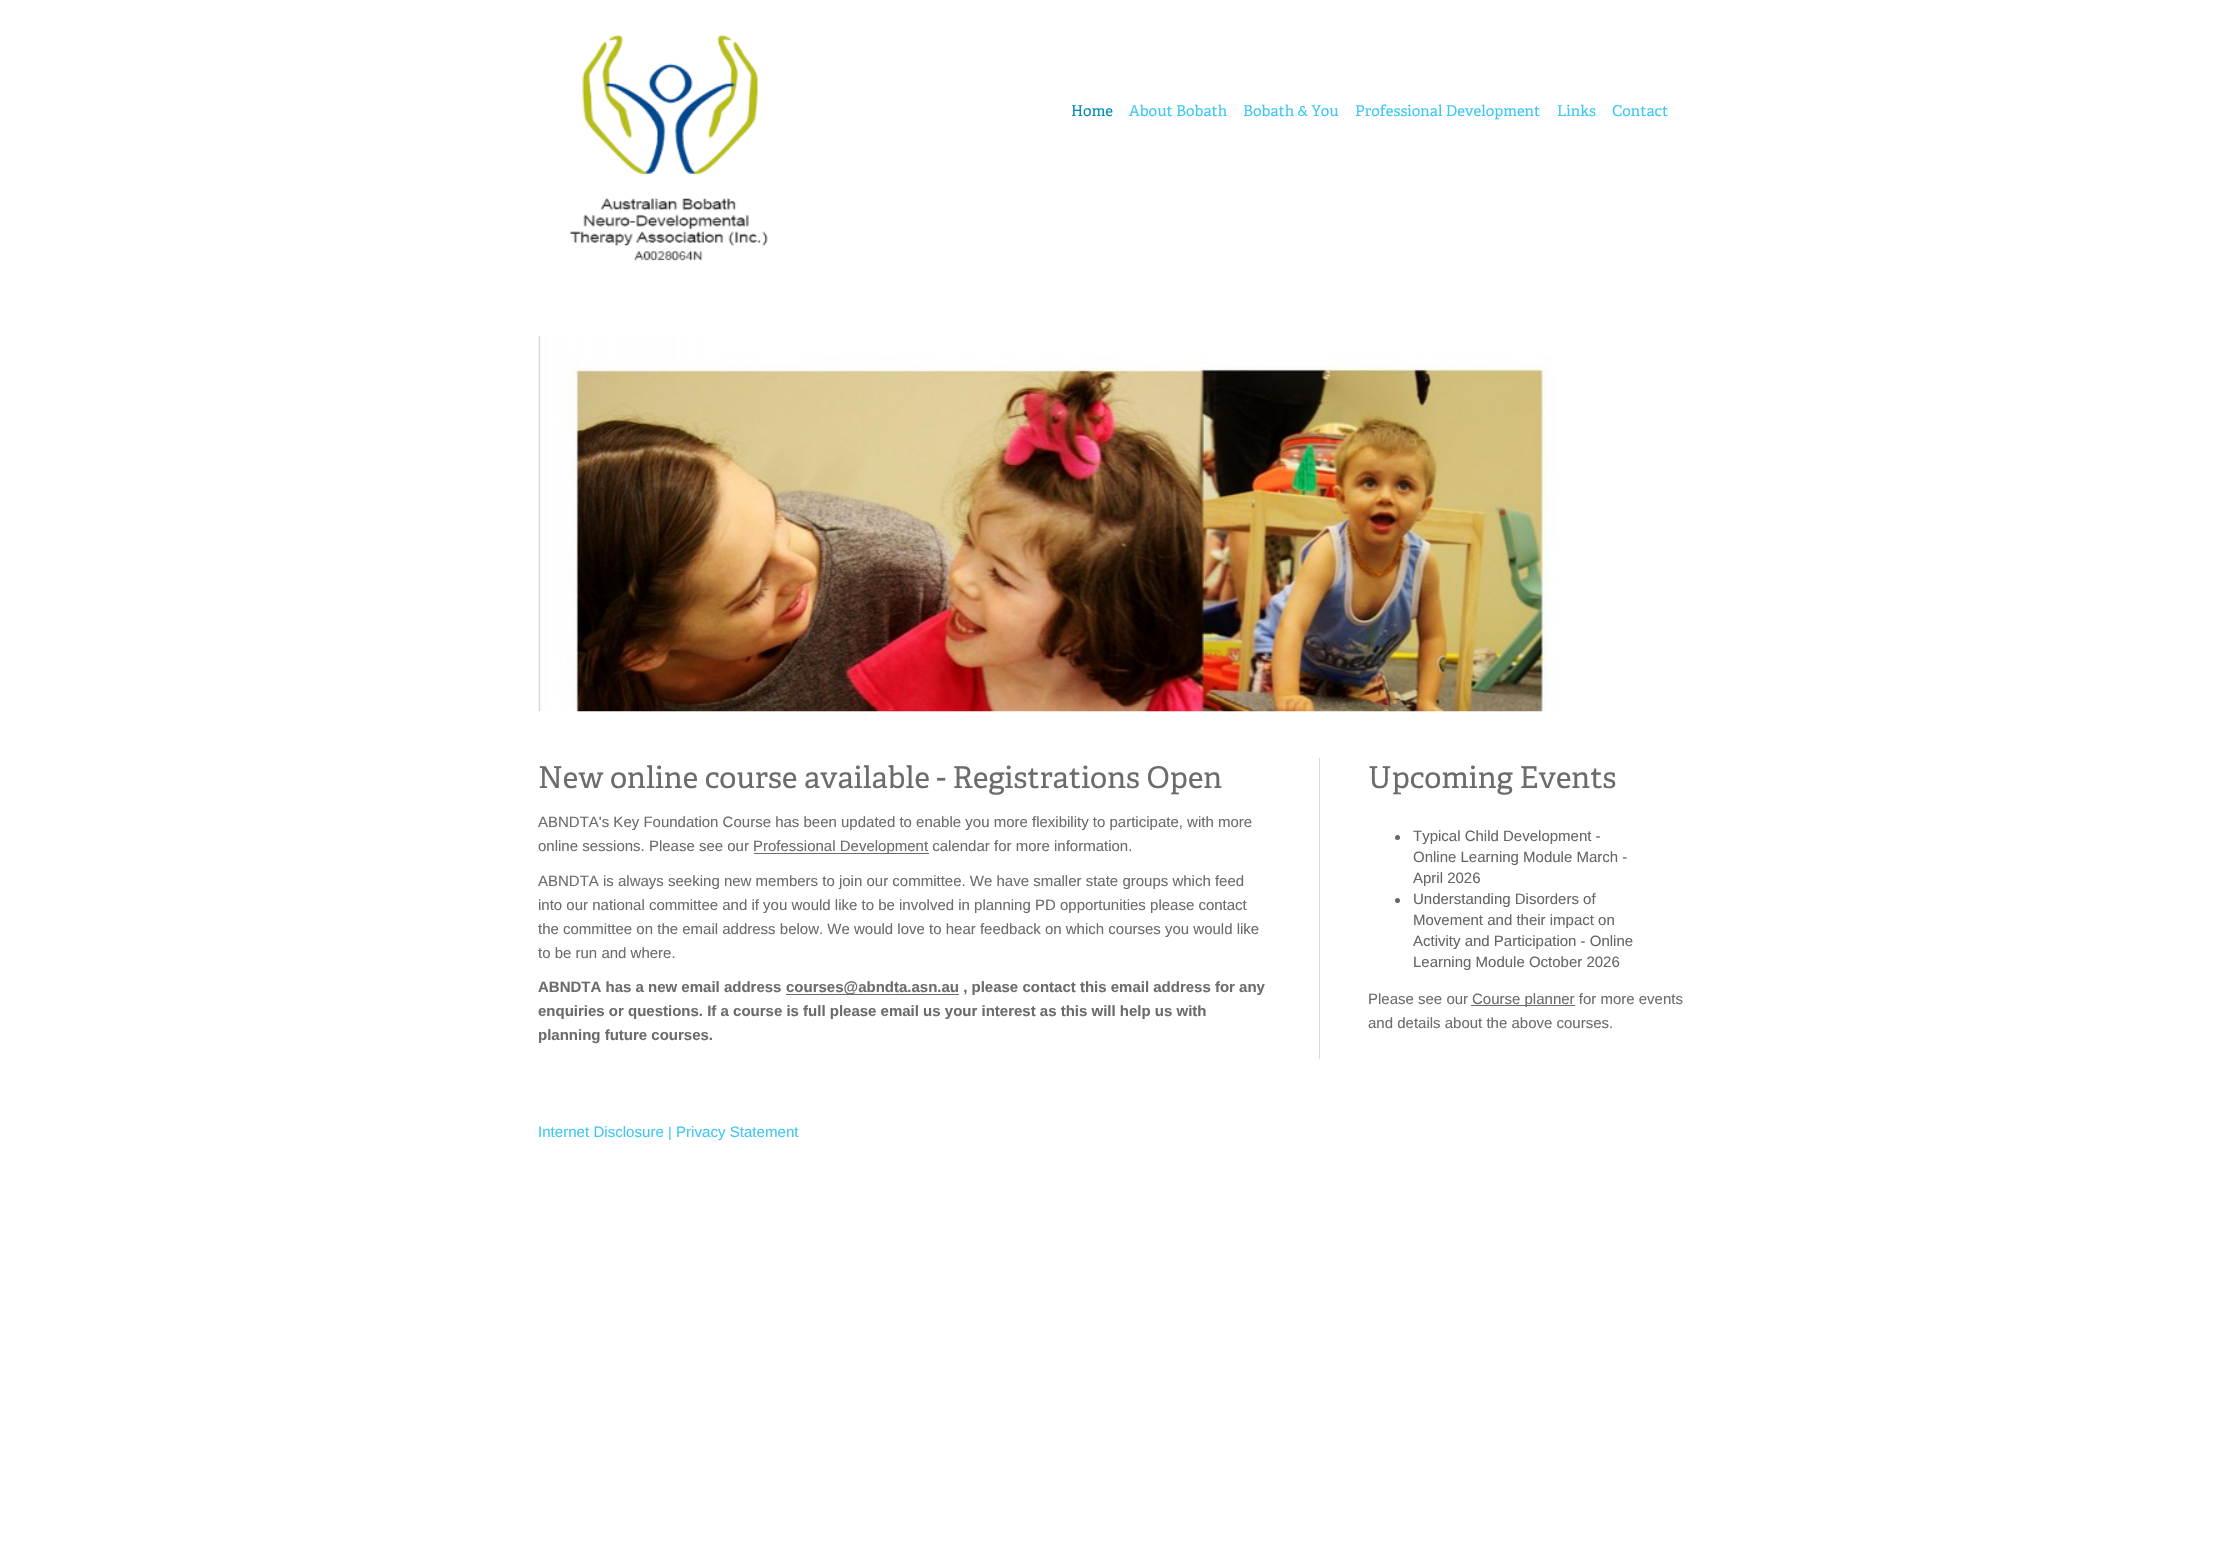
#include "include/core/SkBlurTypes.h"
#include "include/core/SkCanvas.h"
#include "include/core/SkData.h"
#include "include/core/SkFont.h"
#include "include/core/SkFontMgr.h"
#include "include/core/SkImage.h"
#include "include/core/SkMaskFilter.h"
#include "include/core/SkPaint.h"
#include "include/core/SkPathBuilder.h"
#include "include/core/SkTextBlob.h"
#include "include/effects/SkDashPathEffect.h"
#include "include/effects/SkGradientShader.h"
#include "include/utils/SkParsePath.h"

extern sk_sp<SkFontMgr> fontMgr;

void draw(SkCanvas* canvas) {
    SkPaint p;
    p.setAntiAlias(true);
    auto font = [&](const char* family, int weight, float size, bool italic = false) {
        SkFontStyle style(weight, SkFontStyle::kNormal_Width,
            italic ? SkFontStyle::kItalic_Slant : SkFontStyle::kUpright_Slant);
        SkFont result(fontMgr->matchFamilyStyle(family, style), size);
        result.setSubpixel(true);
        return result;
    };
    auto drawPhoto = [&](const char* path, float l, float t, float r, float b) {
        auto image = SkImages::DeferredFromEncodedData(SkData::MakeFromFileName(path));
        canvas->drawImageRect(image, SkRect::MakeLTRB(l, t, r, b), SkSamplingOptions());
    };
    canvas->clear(0xFFFFFFFF);
    drawPhoto("media/1.png", 569, 34, 768, 261);
    auto font1 = font("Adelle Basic", 400, 15);
    p.setColor(0xFF088BB6);
    canvas->drawString("Home", 1071, 116, font1, p);
    p.setColor(0xFF40C8F4);
    {
        const struct { const char* s; float x, y; } items[] = {
            {"About Bobath", 1129, 116},
            {"Bobath & You", 1243, 116},
            {"Professional Development", 1355, 116},
            {"Links", 1557, 116},
            {"Contact", 1612, 116},
        };
        for (auto [s, x, y] : items) {
            canvas->drawString(s, x, y, font1, p);
        }
    }
    drawPhoto("media/2.png", 538, 336, 1556, 712);
    p.setColor(0xFFD9D9D9);
    canvas->drawRect(SkRect::MakeLTRB(1319, 758, 1320, 1059), p);
    auto font2 = font("Adelle Basic", 400, 30);
    p.setColor(0xFF6C6B6D);
    canvas->drawString("New online course available - Registrations Open", 538, 788, font2, p);
    auto font3 = font("Liberation Sans", 400, 15);
    canvas->drawString("ABNDTA's Key Foundation Course has been updated to enable you more flexibility to participate, with more", 538, 827, font3, p);
    canvas->drawString("online sessions. Please see our", 538, 851, font3, p);
    canvas->drawRect(SkRect::MakeLTRB(754, 853, 929, 854), p);
    {
        const struct { const char* s; float x, y; } items[] = {
            {"Professional Development calendar for more information.", 753, 851},
            {"ABNDTA is always seeking new members to join our committee. We have smaller state groups which feed", 538, 886},
            {"into our national committee and if you would like to be involved in planning PD opportunities please contact", 538, 910},
            {"the committee on the email address below. We would love to hear feedback on which courses you would like", 538, 934},
            {"to be run and where.", 538, 958},
        };
        for (auto [s, x, y] : items) {
            canvas->drawString(s, x, y, font3, p);
        }
    }
    auto font4 = font("Liberation Sans", 700, 15);
    canvas->drawString("ABNDTA has a new email address", 538, 992, font4, p);
    canvas->drawRect(SkRect::MakeLTRB(786, 994, 959, 995), p);
    {
        const struct { const char* s; float x, y; } items[] = {
            {"courses@abndta.asn.au , please contact this email address for any", 786, 992},
            {"enquiries or questions. If a course is full please email us your interest as this will help us with", 538, 1016},
            {"planning future courses.", 538, 1040},
        };
        for (auto [s, x, y] : items) {
            canvas->drawString(s, x, y, font4, p);
        }
    }
    canvas->drawString("Upcoming Events", 1368, 788, font2, p);
    p.setColor(0xFF666669);
    canvas->drawCircle(1397.5f, 837.5f, 2.5f, p);
    {
        const struct { const char* s; float x, y; } items[] = {
            {"Typical Child Development -", 1413, 841},
            {"Online Learning Module March -", 1413, 862},
            {"April 2026", 1413, 883},
        };
        for (auto [s, x, y] : items) {
            canvas->drawString(s, x, y, font3, p);
        }
    }
    canvas->drawCircle(1397.5f, 900.5f, 2.5f, p);
    {
        const struct { const char* s; float x, y; } items[] = {
            {"Understanding Disorders of", 1413, 904},
            {"Movement and their impact on", 1413, 925},
            {"Activity and Participation - Online", 1413, 946},
            {"Learning Module October 2026", 1413, 967},
        };
        for (auto [s, x, y] : items) {
            canvas->drawString(s, x, y, font3, p);
        }
    }
    p.setColor(0xFF6C6B6D);
    canvas->drawString("Please see our", 1368, 1004, font3, p);
    canvas->drawRect(SkRect::MakeLTRB(1471, 1005, 1575, 1006), p);
    canvas->drawString("Course planner for more events", 1472, 1004, font3, p);
    canvas->drawString("and details about the above courses.", 1368, 1028, font3, p);
    auto font5 = font("Liberation Sans", 400, 15.1f);
    p.setColor(0xFF40C8F4);
    canvas->drawString("Internet Disclosure", 538, 1137, font5, p);
    auto font6 = font("Liberation Sans", 400, 14);
    canvas->drawString("|", 668, 1137, font6, p);
    canvas->drawString("Privacy Statement", 676, 1137, font5, p);
}
